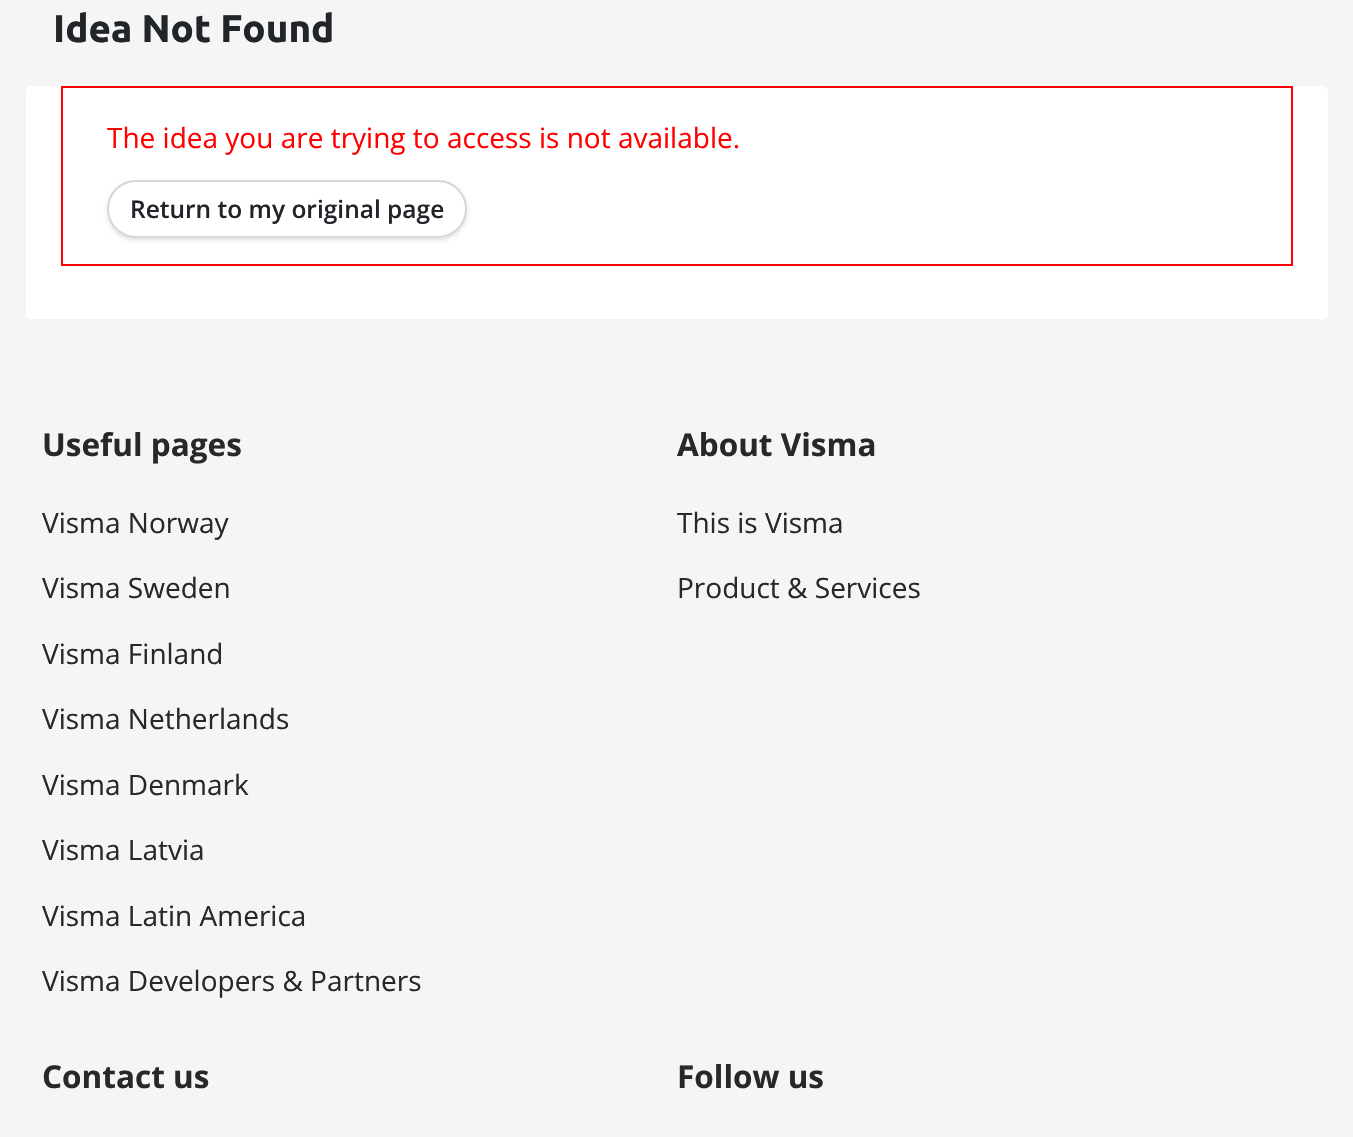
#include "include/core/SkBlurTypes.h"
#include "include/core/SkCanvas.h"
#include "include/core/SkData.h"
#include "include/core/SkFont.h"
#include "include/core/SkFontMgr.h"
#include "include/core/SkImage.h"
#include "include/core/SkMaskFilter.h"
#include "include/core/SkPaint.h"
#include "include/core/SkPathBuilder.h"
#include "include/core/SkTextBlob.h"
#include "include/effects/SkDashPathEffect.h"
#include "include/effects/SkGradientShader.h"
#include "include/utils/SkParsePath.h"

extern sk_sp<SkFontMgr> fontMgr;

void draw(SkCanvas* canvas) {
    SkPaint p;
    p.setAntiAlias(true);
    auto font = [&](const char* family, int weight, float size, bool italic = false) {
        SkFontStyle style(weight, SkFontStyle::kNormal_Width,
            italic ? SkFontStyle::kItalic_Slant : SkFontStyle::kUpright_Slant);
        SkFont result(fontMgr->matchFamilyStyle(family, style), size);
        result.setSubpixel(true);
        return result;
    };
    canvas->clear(0xFFF5F5F5);
    auto font1 = font("Ubuntu", 700, 38.5f);
    p.setColor(0xFF212529);
    canvas->drawString("Idea Not Found", 53, 42, font1, p);
    p.setColor(0xFFFFFFFF);
    canvas->drawRoundRect(SkRect::MakeLTRB(26, 86, 1328, 319), 5, 5, p);
    p.setStyle(SkPaint::kStroke_Style);
    p.setStrokeWidth(2);
    p.setColor(0xFFFF0000);
    canvas->drawRect(SkRect::MakeLTRB(62, 87, 1292, 265), p);
    auto font2 = font("Open Sans", 400, 28);
    p.setStyle(SkPaint::kFill_Style);
    canvas->drawString("The idea you are trying to access is not available.", 107, 148, font2, p);
    canvas->save();
    canvas->clipPath(SkPathBuilder(SkPathFillType::kEvenOdd).moveTo(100, 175).lineTo(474, 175).lineTo(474, 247).lineTo(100, 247).close().moveTo(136, 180).lineTo(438, 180).cubicTo(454, 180, 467, 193, 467, 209).cubicTo(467, 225, 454, 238, 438, 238).lineTo(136, 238).cubicTo(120, 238, 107, 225, 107, 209).cubicTo(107, 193, 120, 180, 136, 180).close().detach(), true);
    p.setColor(0xFFDEDEDE);
    p.setMaskFilter(SkMaskFilter::MakeBlur(kNormal_SkBlurStyle, 2));
    canvas->drawRoundRect(SkRect::MakeLTRB(107, 182, 467, 240), 29, 29, p);
    p.setMaskFilter(nullptr);
    canvas->restore();
    p.setStyle(SkPaint::kStroke_Style);
    p.setColor(0xFFD7D7D7);
    canvas->drawRoundRect(SkRect::MakeLTRB(108, 181, 466, 237), 28, 28, p);
    auto font3 = font("Open Sans", 600, 24.5f);
    p.setStyle(SkPaint::kFill_Style);
    p.setColor(0xFF212529);
    canvas->drawString("Return to my original page", 130, 218, font3, p);
    auto font4 = font("Open Sans", 700, 31.5f);
    p.setColor(0xFF282828);
    canvas->drawString("Useful pages", 42, 456, font4, p);
    {
        const struct { const char* s; float x, y; } items[] = {
            {"Visma Norway", 42, 533},
            {"Visma Sweden", 42, 598},
            {"Visma Finland", 42, 664},
            {"Visma Netherlands", 42, 729},
            {"Visma Denmark", 42, 795},
            {"Visma Latvia", 42, 860},
            {"Visma Latin America", 42, 926},
            {"Visma Developers & Partners", 42, 991},
        };
        for (auto [s, x, y] : items) {
            canvas->drawString(s, x, y, font2, p);
        }
    }
    canvas->drawString("About Visma", 677, 456, font4, p);
    canvas->drawString("This is Visma", 677, 533, font2, p);
    canvas->drawString("Product & Services", 677, 598, font2, p);
    canvas->drawString("Contact us", 42, 1088, font4, p);
    canvas->drawString("Follow us", 677, 1088, font4, p);
}
